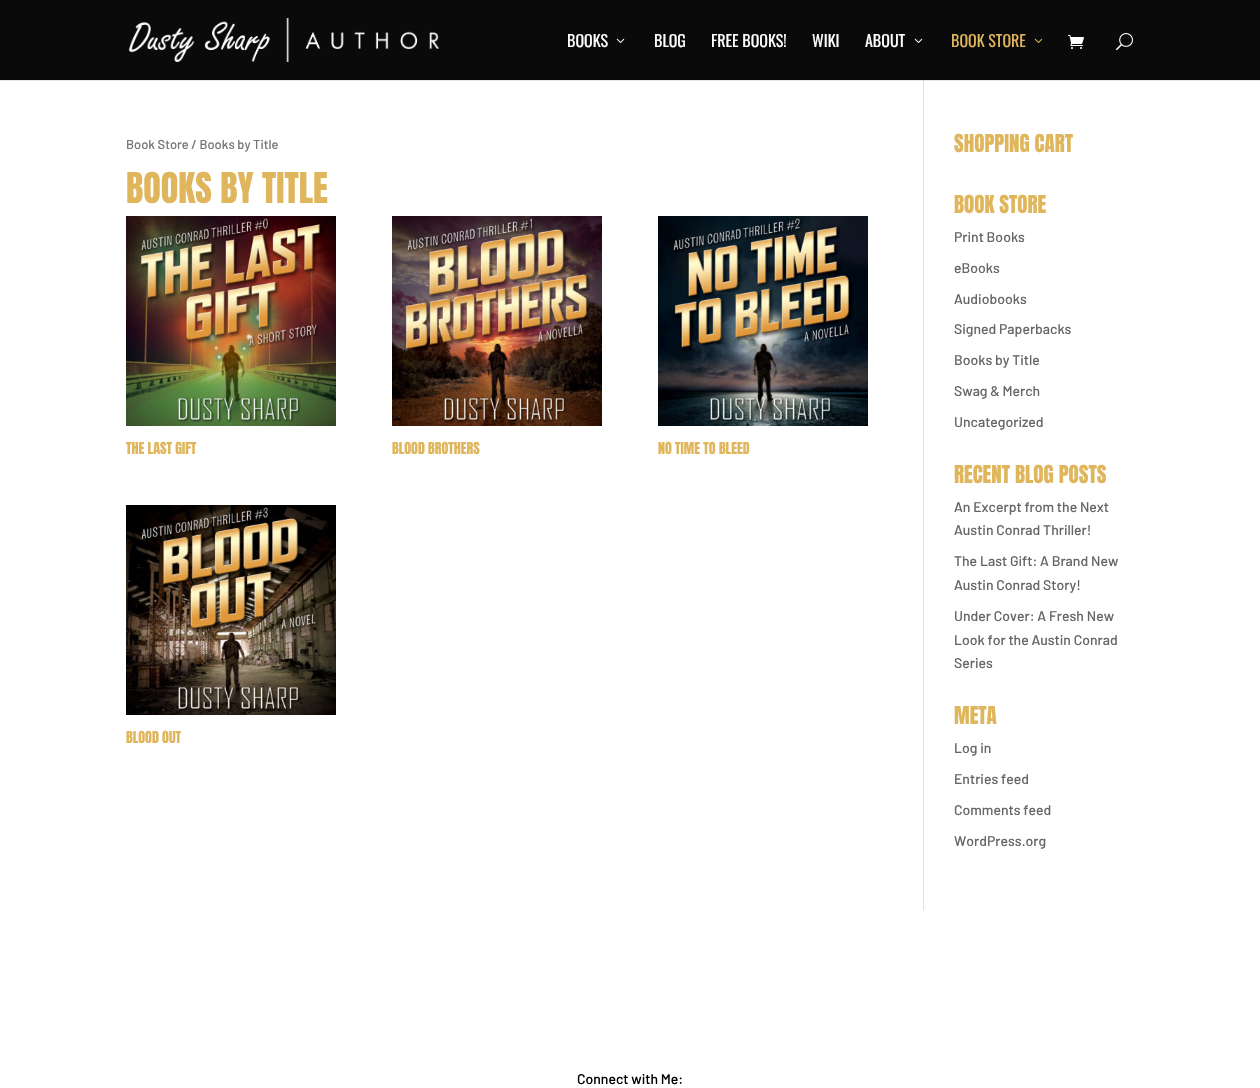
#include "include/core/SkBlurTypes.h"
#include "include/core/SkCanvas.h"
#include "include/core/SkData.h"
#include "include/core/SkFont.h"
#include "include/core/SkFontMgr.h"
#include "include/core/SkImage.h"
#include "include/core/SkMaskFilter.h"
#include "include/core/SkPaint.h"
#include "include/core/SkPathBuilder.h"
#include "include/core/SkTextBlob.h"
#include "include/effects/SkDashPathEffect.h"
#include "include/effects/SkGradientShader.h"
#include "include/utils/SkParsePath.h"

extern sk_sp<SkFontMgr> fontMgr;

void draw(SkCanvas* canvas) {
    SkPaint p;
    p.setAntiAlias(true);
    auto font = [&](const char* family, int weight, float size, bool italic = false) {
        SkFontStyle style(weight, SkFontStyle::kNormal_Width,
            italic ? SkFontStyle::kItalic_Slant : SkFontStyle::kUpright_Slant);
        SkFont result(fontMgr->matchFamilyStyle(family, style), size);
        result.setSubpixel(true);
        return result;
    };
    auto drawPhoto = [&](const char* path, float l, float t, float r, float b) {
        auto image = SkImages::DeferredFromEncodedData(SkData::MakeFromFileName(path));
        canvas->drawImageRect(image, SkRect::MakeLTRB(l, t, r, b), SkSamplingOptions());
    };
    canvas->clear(0xFFFFFFFF);
    {
        const struct { float l, t, r, b; SkColor color; } items[] = {
            {0, 80, 1260, 81, 0xFFE6E6E6},
            {923, 75, 924, 910, 0xFFE2E2E2},
            {0, 0, 1260, 80, 0xFF0A0A0A},
        };
        for (auto [l, t, r, b, color] : items) {
            p.setColor(color);
            canvas->drawRect(SkRect::MakeLTRB(l, t, r, b), p);
        }
    }
    drawPhoto("media/1.png", 129, 18, 439, 62);
    auto font1 = font("Oswald", 400, 16);
    p.setColor(0xFFFFFFFF);
    canvas->drawString("BOOKS", 567, 47, font1, p);
    drawPhoto("media/2.png", 616, 38, 625, 43);
    {
        const struct { const char* s; float x, y; } items[] = {
            {"BLOG", 654, 47},
            {"FREE BOOKS!", 711, 47},
            {"WIKI", 812, 47},
            {"ABOUT", 865, 47},
        };
        for (auto [s, x, y] : items) {
            canvas->drawString(s, x, y, font1, p);
        }
    }
    drawPhoto("media/2.png", 914, 38, 923, 43);
    p.setColor(0xFFE0B65C);
    canvas->drawString("BOOK STORE", 951, 47, font1, p);
    drawPhoto("media/3.png", 1034, 38, 1043, 43);
    drawPhoto("media/4.png", 1068, 35, 1084, 49);
    drawPhoto("media/5.png", 1116, 33, 1133, 51);
    p.setColor(0xFFCBCBCB);
    canvas->drawRect(SkRect::MakeLTRB(923, 80, 924, 81), p);
    auto font2 = font("Barlow", 500, 12.9f);
    p.setColor(0xFF767676);
    canvas->drawString("Book Store / Books by Title", 126, 149, font2, p);
    auto font3 = font("Anton", 400, 36);
    p.setColor(0xFFE0B65C);
    canvas->drawString("BOOKS BY TITLE", 126, 203, font3, p);
    drawPhoto("media/6.png", 126, 216, 336, 426);
    auto font4 = font("Anton", 400, 14);
    canvas->drawString("THE LAST GIFT", 126, 454, font4, p);
    drawPhoto("media/7.png", 392, 216, 602, 426);
    canvas->drawString("BLOOD BROTHERS", 392, 454, font4, p);
    drawPhoto("media/8.png", 658, 216, 868, 426);
    canvas->drawString("NO TIME TO BLEED", 658, 454, font4, p);
    drawPhoto("media/9.png", 126, 505, 336, 715);
    canvas->drawString("BLOOD OUT", 126, 743, font4, p);
    auto font5 = font("Anton", 400, 21);
    canvas->drawString("SHOPPING CART", 954, 152, font5, p);
    canvas->drawString("BOOK STORE", 954, 213, font5, p);
    auto font6 = font("Barlow", 500, 14);
    p.setColor(0xFF666666);
    {
        const struct { const char* s; float x, y; } items[] = {
            {"Print Books", 954, 242},
            {"eBooks", 954, 273},
            {"Audiobooks", 954, 304},
            {"Signed Paperbacks", 954, 334},
            {"Books by Title", 954, 365},
            {"Swag & Merch", 954, 396},
            {"Uncategorized", 954, 427},
        };
        for (auto [s, x, y] : items) {
            canvas->drawString(s, x, y, font6, p);
        }
    }
    p.setColor(0xFFE0B65C);
    canvas->drawString("RECENT BLOG POSTS", 954, 483, font5, p);
    p.setColor(0xFF666666);
    {
        const struct { const char* s; float x, y; } items[] = {
            {"An Excerpt from the Next", 954, 512},
            {"Austin Conrad Thriller!", 954, 535},
            {"The Last Gift: A Brand New", 954, 566},
            {"Austin Conrad Story!", 954, 590},
            {"Under Cover: A Fresh New", 954, 621},
            {"Look for the Austin Conrad", 954, 645},
            {"Series", 954, 668},
        };
        for (auto [s, x, y] : items) {
            canvas->drawString(s, x, y, font6, p);
        }
    }
    p.setColor(0xFFE0B65C);
    canvas->drawString("META", 954, 724, font5, p);
    p.setColor(0xFF666666);
    {
        const struct { const char* s; float x, y; } items[] = {
            {"Log in", 954, 753},
            {"Entries feed", 954, 784},
            {"Comments feed", 954, 815},
            {"WordPress.org", 954, 846},
        };
        for (auto [s, x, y] : items) {
            canvas->drawString(s, x, y, font6, p);
        }
    }
    p.setColor(0xFF000000);
    canvas->drawString("Connect with Me:", 577, 1084, font6, p);
}
